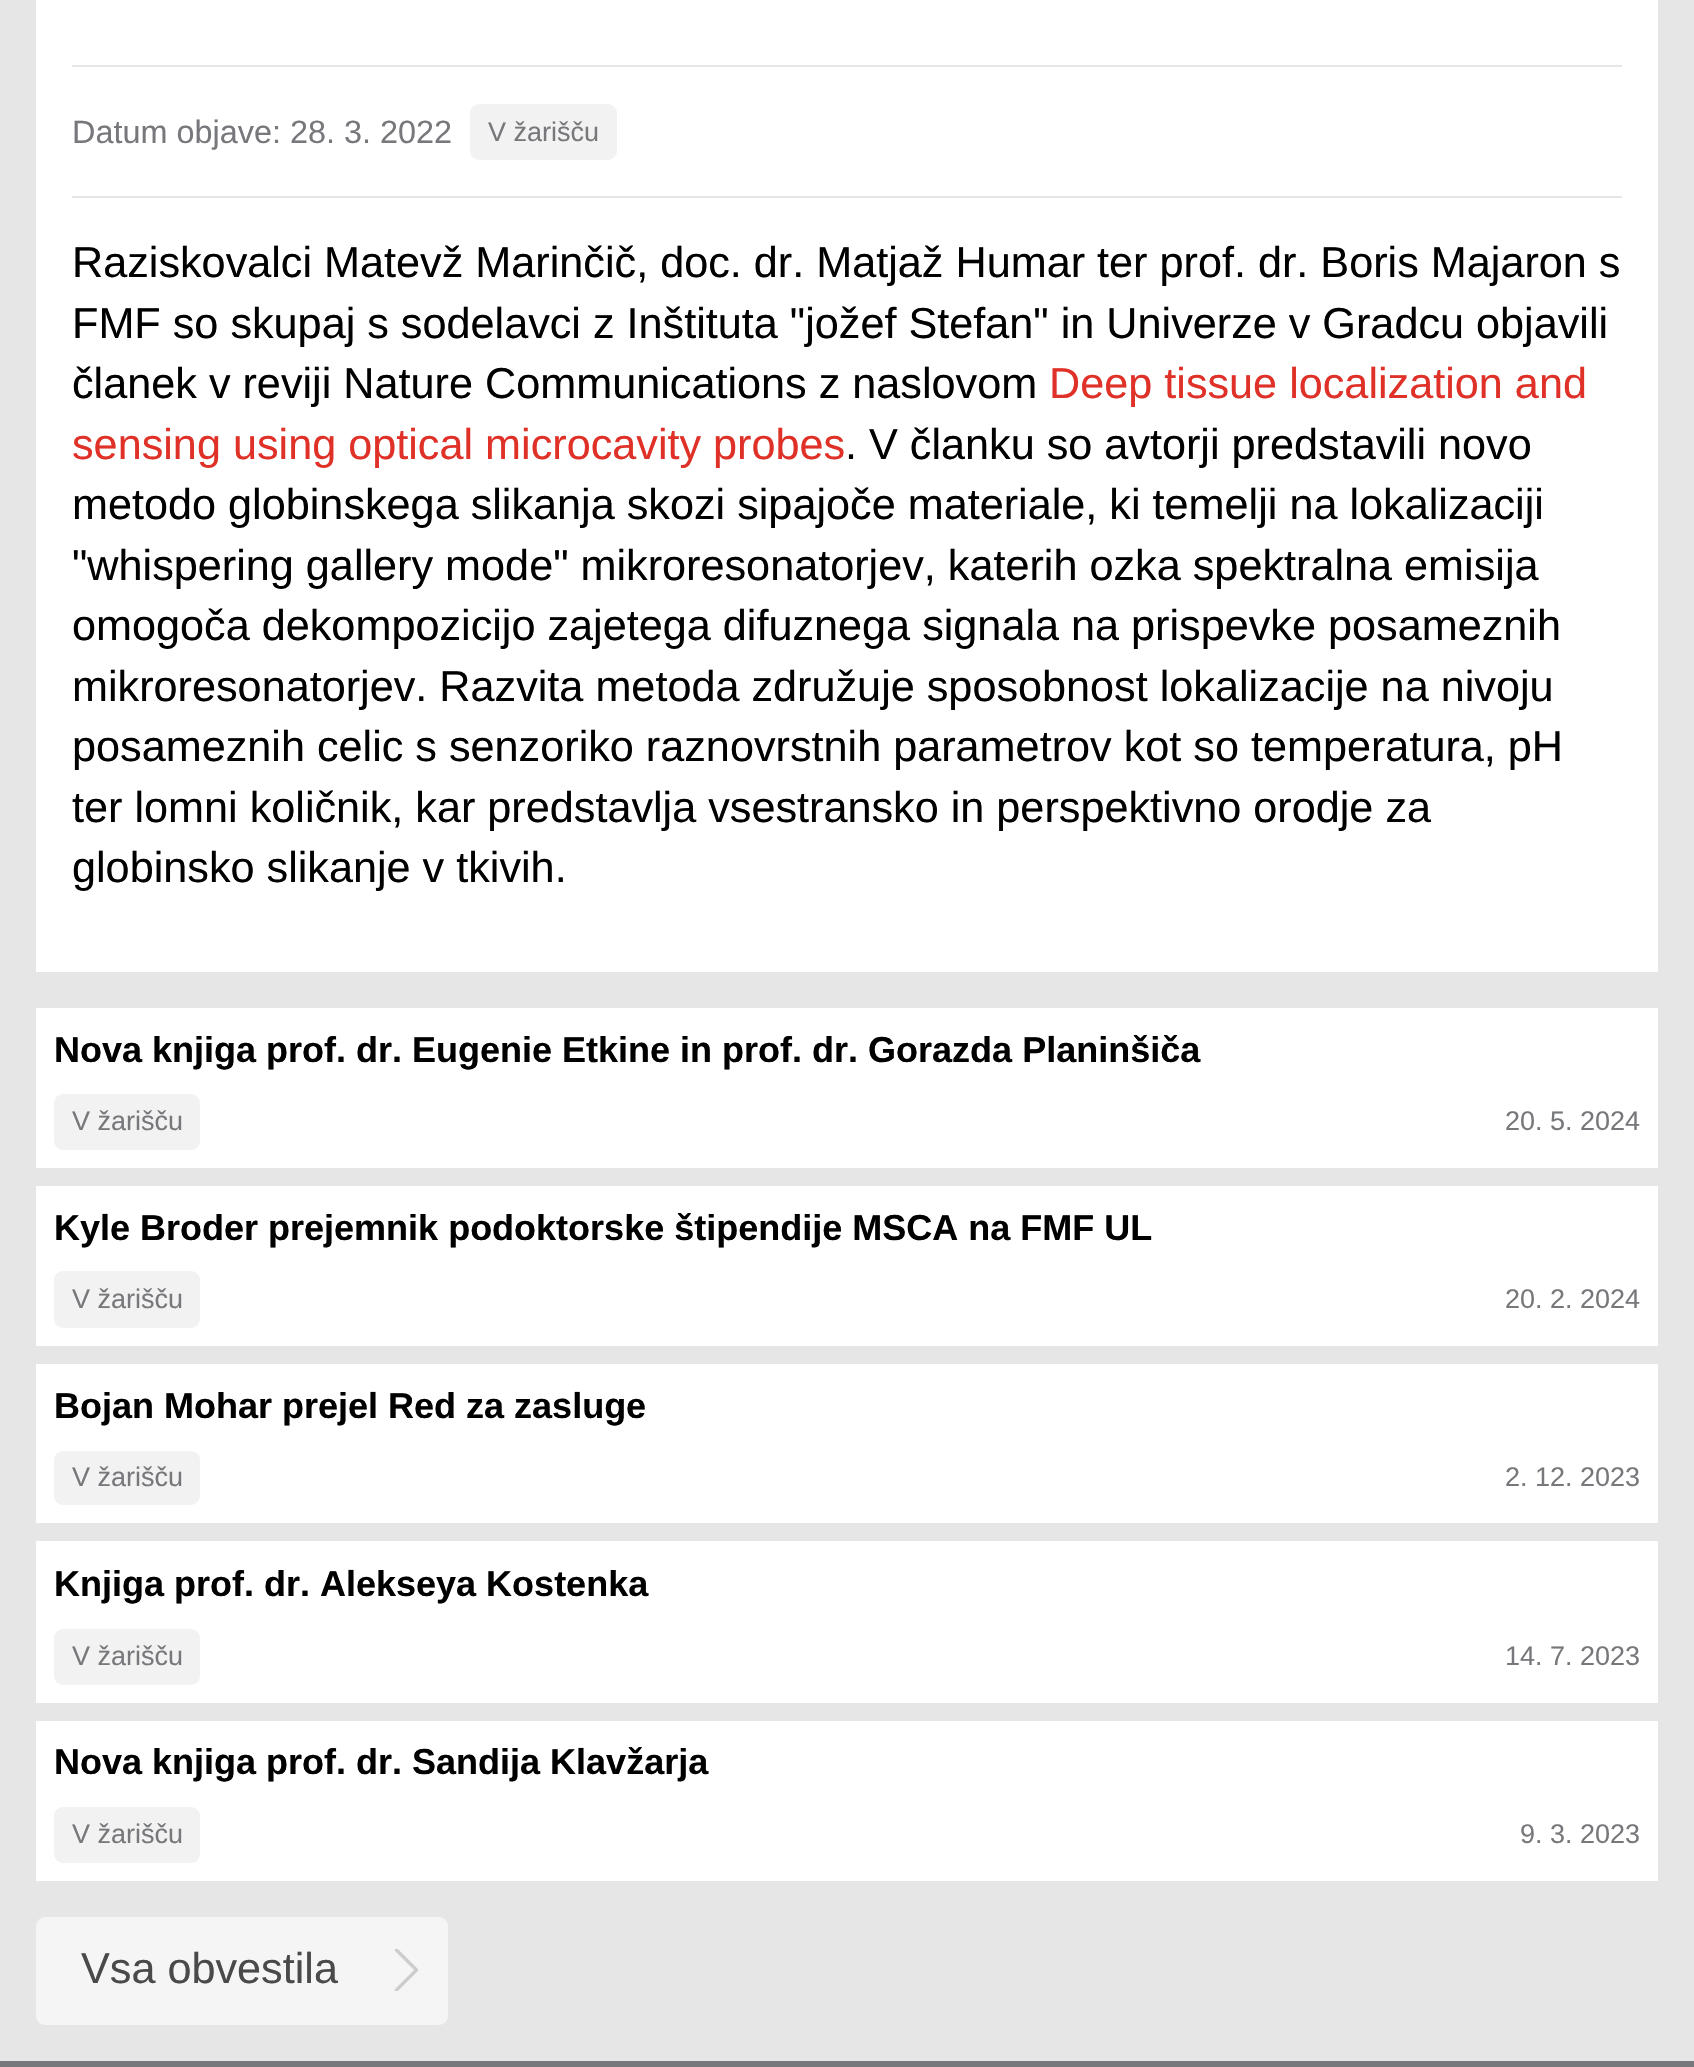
#include "include/core/SkBlurTypes.h"
#include "include/core/SkCanvas.h"
#include "include/core/SkData.h"
#include "include/core/SkFont.h"
#include "include/core/SkFontMgr.h"
#include "include/core/SkImage.h"
#include "include/core/SkMaskFilter.h"
#include "include/core/SkPaint.h"
#include "include/core/SkPathBuilder.h"
#include "include/core/SkTextBlob.h"
#include "include/effects/SkDashPathEffect.h"
#include "include/effects/SkGradientShader.h"
#include "include/utils/SkParsePath.h"

extern sk_sp<SkFontMgr> fontMgr;

void draw(SkCanvas* canvas) {
    SkPaint p;
    p.setAntiAlias(true);
    auto font = [&](const char* family, int weight, float size, bool italic = false) {
        SkFontStyle style(weight, SkFontStyle::kNormal_Width,
            italic ? SkFontStyle::kItalic_Slant : SkFontStyle::kUpright_Slant);
        SkFont result(fontMgr->matchFamilyStyle(family, style), size);
        result.setSubpixel(true);
        return result;
    };
    canvas->clear(0xFFE6E6E6);
    {
        const struct { float l, t, r, b; SkColor color; } items[] = {
            {36, 0, 1658, 972, 0xFFFFFFFF},
            {72, 65, 1622, 67, 0xFFE6E6E6},
            {72, 196, 1622, 198, 0xFFE6E6E6},
        };
        for (auto [l, t, r, b, color] : items) {
            p.setColor(color);
            canvas->drawRect(SkRect::MakeLTRB(l, t, r, b), p);
        }
    }
    auto font1 = font("Liberation Sans", 400, 32.4f);
    p.setColor(0xFF77787B);
    canvas->drawString("Datum objave: 28. 3. 2022", 72, 143, font1, p);
    p.setColor(0xFFF2F2F2);
    canvas->drawRoundRect(SkRect::MakeLTRB(470, 104, 617, 160), 9, 9, p);
    auto font2 = font("Liberation Sans", 400, 27);
    p.setColor(0xFF77787B);
    canvas->drawString("V žarišču", 488, 141, font2, p);
    auto font3 = font("Liberation Sans", 400, 43.2f);
    p.setColor(0xFF000000);
    {
        const struct { const char* s; float x, y; } items[] = {
            {"Raziskovalci Matevž Marinčič, doc. dr. Matjaž Humar ter prof. dr. Boris Majaron s", 72, 277},
            {"FMF so skupaj s sodelavci z Inštituta \"jožef Stefan\" in Univerze v Gradcu objavili", 72, 338},
            {"članek v reviji Nature Communications z naslovom", 72, 398},
        };
        for (auto [s, x, y] : items) {
            canvas->drawString(s, x, y, font3, p);
        }
    }
    p.setColor(0xFFDF3127);
    canvas->drawString("Deep tissue localization and", 1049, 398, font3, p);
    canvas->drawString("sensing using optical microcavity probes", 72, 459, font3, p);
    p.setColor(0xFF000000);
    {
        const struct { const char* s; float x, y; } items[] = {
            {". V članku so avtorji predstavili novo", 845, 459},
            {"metodo globinskega slikanja skozi sipajoče materiale, ki temelji na lokalizaciji", 72, 519},
            {"\"whispering gallery mode\" mikroresonatorjev, katerih ozka spektralna emisija", 72, 580},
            {"omogoča dekompozicijo zajetega difuznega signala na prispevke posameznih", 72, 640},
            {"mikroresonatorjev. Razvita metoda združuje sposobnost lokalizacije na nivoju", 72, 701},
            {"posameznih celic s senzoriko raznovrstnih parametrov kot so temperatura, pH", 72, 761},
            {"ter lomni količnik, kar predstavlja vsestransko in perspektivno orodje za", 72, 822},
            {"globinsko slikanje v tkivih.", 72, 882},
        };
        for (auto [s, x, y] : items) {
            canvas->drawString(s, x, y, font3, p);
        }
    }
    p.setColor(0xFFFFFFFF);
    canvas->drawRect(SkRect::MakeLTRB(36, 1008, 1658, 1168), p);
    auto font4 = font("Liberation Sans", 700, 36);
    p.setColor(0xFF000000);
    canvas->drawString("Nova knjiga prof. dr. Eugenie Etkine in prof. dr. Gorazda Planinšiča", 54, 1062, font4, p);
    p.setColor(0xFFF2F2F2);
    canvas->drawRoundRect(SkRect::MakeLTRB(54, 1094, 200, 1150), 9, 9, p);
    p.setColor(0xFF77787B);
    canvas->drawString("V žarišču", 72, 1130, font2, p);
    canvas->drawString("20. 5. 2024", 1505, 1130, font2, p);
    p.setColor(0xFFFFFFFF);
    canvas->drawRect(SkRect::MakeLTRB(36, 1186, 1658, 1346), p);
    p.setColor(0xFF000000);
    canvas->drawString("Kyle Broder prejemnik podoktorske štipendije MSCA na FMF UL", 54, 1240, font4, p);
    p.setColor(0xFFF2F2F2);
    canvas->drawRoundRect(SkRect::MakeLTRB(54, 1271, 200, 1328), 9, 9, p);
    p.setColor(0xFF77787B);
    canvas->drawString("V žarišču", 72, 1308, font2, p);
    canvas->drawString("20. 2. 2024", 1505, 1308, font2, p);
    p.setColor(0xFFFFFFFF);
    canvas->drawRect(SkRect::MakeLTRB(36, 1364, 1658, 1523), p);
    p.setColor(0xFF000000);
    canvas->drawString("Bojan Mohar prejel Red za zasluge", 54, 1418, font4, p);
    p.setColor(0xFFF2F2F2);
    canvas->drawRoundRect(SkRect::MakeLTRB(54, 1451, 200, 1505), 9, 9, p);
    p.setColor(0xFF77787B);
    canvas->drawString("V žarišču", 72, 1486, font2, p);
    canvas->drawString("2. 12. 2023", 1505, 1486, font2, p);
    p.setColor(0xFFFFFFFF);
    canvas->drawRect(SkRect::MakeLTRB(36, 1541, 1658, 1703), p);
    p.setColor(0xFF000000);
    canvas->drawString("Knjiga prof. dr. Alekseya Kostenka", 54, 1596, font4, p);
    p.setColor(0xFFF2F2F2);
    canvas->drawRoundRect(SkRect::MakeLTRB(54, 1629, 200, 1685), 9, 9, p);
    p.setColor(0xFF77787B);
    canvas->drawString("V žarišču", 72, 1665, font2, p);
    canvas->drawString("14. 7. 2023", 1505, 1665, font2, p);
    p.setColor(0xFFFFFFFF);
    canvas->drawRect(SkRect::MakeLTRB(36, 1721, 1658, 1881), p);
    p.setColor(0xFF000000);
    canvas->drawString("Nova knjiga prof. dr. Sandija Klavžarja", 54, 1774, font4, p);
    p.setColor(0xFFF2F2F2);
    canvas->drawRoundRect(SkRect::MakeLTRB(54, 1807, 200, 1863), 9, 9, p);
    p.setColor(0xFF77787B);
    canvas->drawString("V žarišču", 72, 1843, font2, p);
    canvas->drawString("9. 3. 2023", 1520, 1843, font2, p);
    p.setColor(0xFFF5F5F5);
    canvas->drawRoundRect(SkRect::MakeLTRB(36, 1917, 448, 2025), 9, 9, p);
    p.setColor(0xFF4A4A4A);
    canvas->drawString("Vsa obvestila", 81, 1983, font3, p);
    canvas->save();
    canvas->clipRect(SkRect::MakeLTRB(385, 1949, 428, 1991));
    p.setStyle(SkPaint::kStroke_Style);
    p.setStrokeWidth(3.3f);
    p.setStrokeCap(SkPaint::kRound_Cap);
    p.setStrokeJoin(SkPaint::kRound_Join);
    p.setColor(0xFFCCCCCC);
    canvas->drawPath(SkPathBuilder().moveTo(396.5f, 1990).lineTo(416.5f, 1970).lineTo(396.5f, 1950).detach(), p);
    canvas->restore();
    p.setStyle(SkPaint::kFill_Style);
    p.setColor(0xFF77787B);
    canvas->drawRect(SkRect::MakeLTRB(0, 2061, 1694, 2067), p);
}
